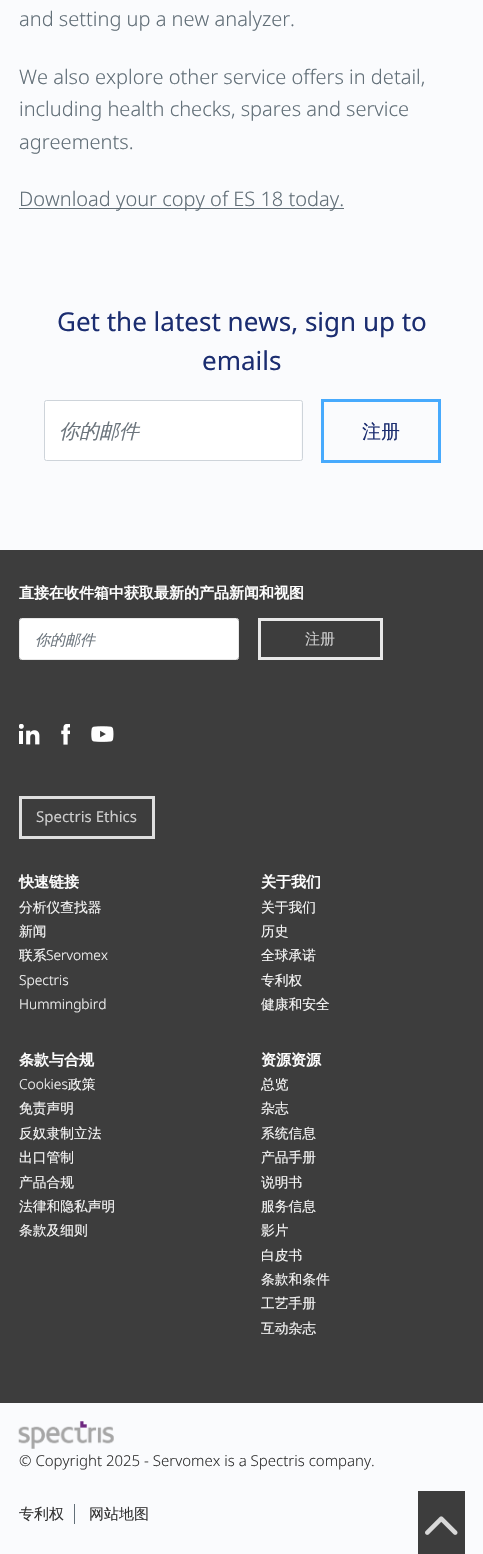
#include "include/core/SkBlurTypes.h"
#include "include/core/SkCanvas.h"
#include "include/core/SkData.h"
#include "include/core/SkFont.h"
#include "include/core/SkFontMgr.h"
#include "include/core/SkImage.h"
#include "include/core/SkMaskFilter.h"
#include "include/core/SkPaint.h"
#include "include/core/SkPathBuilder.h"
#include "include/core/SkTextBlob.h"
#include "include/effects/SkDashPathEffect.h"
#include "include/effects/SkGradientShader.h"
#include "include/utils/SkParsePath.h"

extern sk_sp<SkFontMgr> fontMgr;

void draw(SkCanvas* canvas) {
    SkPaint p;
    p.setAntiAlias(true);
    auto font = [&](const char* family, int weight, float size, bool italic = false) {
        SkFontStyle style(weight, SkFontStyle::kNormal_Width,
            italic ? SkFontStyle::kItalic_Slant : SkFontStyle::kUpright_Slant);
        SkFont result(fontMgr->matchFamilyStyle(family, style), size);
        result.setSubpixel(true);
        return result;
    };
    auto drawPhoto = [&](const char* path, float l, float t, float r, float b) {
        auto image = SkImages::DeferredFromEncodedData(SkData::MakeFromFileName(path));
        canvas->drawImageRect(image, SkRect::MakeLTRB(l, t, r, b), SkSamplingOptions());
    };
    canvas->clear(0xFFFAFBFD);
    auto font1 = font("Noto Sans", 300, 20);
    p.setColor(0xFF626F78);
    {
        const struct { const char* s; float x, y; } items[] = {
            {"and setting up a new analyzer.", 19, 26},
            {"We also explore other service offers in detail,", 19, 84},
            {"including health checks, spares and service", 19, 116},
            {"agreements.", 19, 149},
        };
        for (auto [s, x, y] : items) {
            canvas->drawString(s, x, y, font1, p);
        }
    }
    canvas->drawRect(SkRect::MakeLTRB(19, 208, 344, 209), p);
    canvas->drawString("Download your copy of ES 18 today.", 19, 206, font1, p);
    auto font2 = font("Noto Sans", 400, 26);
    p.setColor(0xFF1B2D70);
    canvas->drawString("Get the latest news, sign up to", 57, 331, font2, p);
    canvas->drawString("emails", 202, 370, font2, p);
    p.setColor(0xFFFFFFFF);
    canvas->drawRoundRect(SkRect::MakeLTRB(45, 401, 301, 460), 1, 1, p);
    p.setStyle(SkPaint::kStroke_Style);
    p.setStrokeWidth(1);
    p.setColor(0xFFCED4DA);
    canvas->drawRoundRect(SkRect::MakeLTRB(44.5f, 400.5f, 302.5f, 460.5f), 2, 2, p);
    auto font3 = font("WenQuanYi Zen Hei", 500, 20, true);
    p.setStyle(SkPaint::kFill_Style);
    p.setColor(0xFF6C757D);
    canvas->drawString("你的邮件", 59, 438, font3, p);
    p.setStyle(SkPaint::kStroke_Style);
    p.setStrokeWidth(3);
    p.setColor(0xFF47AAFD);
    canvas->drawRect(SkRect::MakeLTRB(322.5f, 400.5f, 439.5f, 461.5f), p);
    auto font4 = font("WenQuanYi Zen Hei", 500, 19);
    p.setStyle(SkPaint::kFill_Style);
    p.setColor(0xFF1B2D70);
    canvas->drawString("注册", 362, 438, font4, p);
    p.setColor(0xFF3D3D3D);
    canvas->drawRect(SkRect::MakeLTRB(0, 550, 483, 1403), p);
    auto font5 = font("WenQuanYi Zen Hei", 700, 15);
    p.setColor(0xFFFFFFFF);
    canvas->drawString("直接在收件箱中获取最新的产品新闻和视图", 19, 598, font5, p);
    canvas->drawRoundRect(SkRect::MakeLTRB(20, 619, 238, 659), 1, 1, p);
    p.setStyle(SkPaint::kStroke_Style);
    p.setStrokeWidth(1);
    p.setColor(0xFFE8E8E8);
    canvas->drawRoundRect(SkRect::MakeLTRB(19.5f, 618.5f, 238.5f, 659.5f), 2, 2, p);
    auto font6 = font("WenQuanYi Zen Hei", 500, 15, true);
    p.setStyle(SkPaint::kFill_Style);
    p.setColor(0xFF6C757D);
    canvas->drawString("你的邮件", 35, 645, font6, p);
    p.setStyle(SkPaint::kStroke_Style);
    p.setStrokeWidth(3);
    p.setColor(0xFFE8E8E8);
    canvas->drawRect(SkRect::MakeLTRB(259.5f, 619.5f, 381.5f, 658.5f), p);
    auto font7 = font("WenQuanYi Zen Hei", 500, 15);
    p.setStyle(SkPaint::kFill_Style);
    p.setColor(0xFFCDCDCD);
    canvas->drawString("注册", 305, 644, font7, p);
    drawPhoto("media/1.png", 19, 724, 40, 745);
    drawPhoto("media/2.png", 61, 724, 70, 745);
    drawPhoto("media/3.png", 91, 726, 114, 742);
    p.setStyle(SkPaint::kStroke_Style);
    p.setColor(0xFFDFDFDF);
    canvas->drawRect(SkRect::MakeLTRB(20.5f, 797.5f, 153.5f, 837.5f), p);
    auto font8 = font("Noto Sans", 400, 15);
    p.setStyle(SkPaint::kFill_Style);
    p.setColor(0xFFCDCDCD);
    canvas->drawString("Spectris Ethics", 36, 822, font8, p);
    p.setColor(0xFFFFFFFF);
    canvas->drawString("快速链接", 19, 887, font5, p);
    auto font9 = font("WenQuanYi Zen Hei", 500, 13.75f);
    p.setColor(0xFFF6F6F6);
    {
        const struct { const char* s; float x, y; } items[] = {
            {"分析仪查找器", 19, 912},
            {"新闻", 19, 936},
            {"联系", 19, 960},
        };
        for (auto [s, x, y] : items) {
            canvas->drawString(s, x, y, font9, p);
        }
    }
    auto font10 = font("Noto Sans", 300, 13.75f);
    {
        const struct { const char* s; float x, y; } items[] = {
            {"Servomex", 46, 960},
            {"Spectris", 19, 985},
            {"Hummingbird", 19, 1009},
        };
        for (auto [s, x, y] : items) {
            canvas->drawString(s, x, y, font10, p);
        }
    }
    p.setColor(0xFFFFFFFF);
    canvas->drawString("关于我们", 261, 887, font5, p);
    p.setColor(0xFFF6F6F6);
    {
        const struct { const char* s; float x, y; } items[] = {
            {"关于我们", 261, 912},
            {"历史", 261, 936},
            {"全球承诺", 261, 960},
            {"专利权", 261, 985},
            {"健康和安全", 261, 1009},
        };
        for (auto [s, x, y] : items) {
            canvas->drawString(s, x, y, font9, p);
        }
    }
    p.setColor(0xFFFFFFFF);
    canvas->drawString("条款与合规", 19, 1065, font5, p);
    p.setColor(0xFFF6F6F6);
    canvas->drawString("Cookies", 19, 1089, font10, p);
    {
        const struct { const char* s; float x, y; } items[] = {
            {"政策", 68, 1089},
            {"免责声明", 19, 1113},
            {"反奴隶制立法", 19, 1138},
            {"出口管制", 19, 1162},
            {"产品合规", 19, 1187},
            {"法律和隐私声明", 19, 1211},
            {"条款及细则", 19, 1235},
        };
        for (auto [s, x, y] : items) {
            canvas->drawString(s, x, y, font9, p);
        }
    }
    p.setColor(0xFFFFFFFF);
    canvas->drawString("资源资源", 261, 1065, font5, p);
    p.setColor(0xFFF6F6F6);
    {
        const struct { const char* s; float x, y; } items[] = {
            {"总览", 261, 1089},
            {"杂志", 261, 1113},
            {"系统信息", 261, 1138},
            {"产品手册", 261, 1162},
            {"说明书", 261, 1187},
            {"服务信息", 261, 1211},
            {"影片", 261, 1235},
            {"白皮书", 261, 1260},
            {"条款和条件", 261, 1284},
            {"工艺手册", 261, 1308},
            {"互动杂志", 261, 1333},
        };
        for (auto [s, x, y] : items) {
            canvas->drawString(s, x, y, font9, p);
        }
    }
    drawPhoto("media/4.png", 18, 1421, 114, 1449);
    auto font11 = font("Noto Sans", 300, 15);
    p.setColor(0xFF343434);
    canvas->drawString("© Copyright 2025 - Servomex is a Spectris company.", 19, 1466, font11, p);
    p.setColor(0xFF626F78);
    canvas->drawRect(SkRect::MakeLTRB(74, 1504, 75, 1524), p);
    p.setColor(0xFF343434);
    canvas->drawString("专利权", 19, 1519, font7, p);
    canvas->drawString("网站地图", 89, 1519, font7, p);
    p.setColor(0xFF3D3D3D);
    canvas->drawRect(SkRect::MakeLTRB(418, 1491, 465, 1554), p);
    drawPhoto("media/5.png", 425, 1516, 458, 1535);
}
